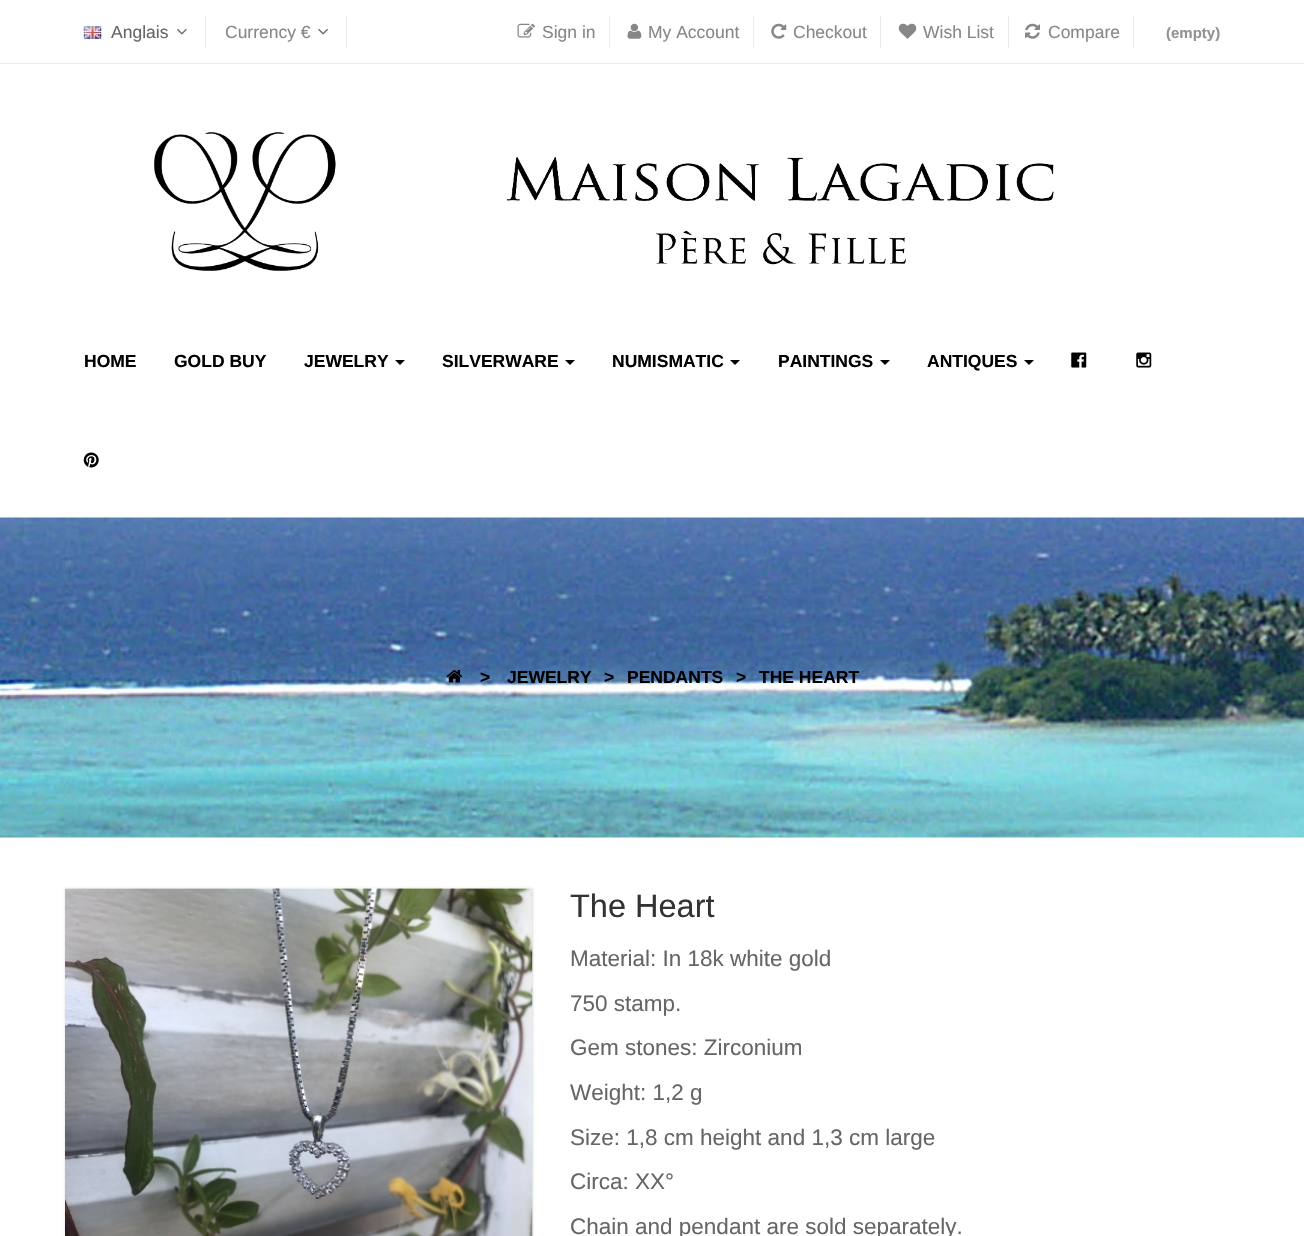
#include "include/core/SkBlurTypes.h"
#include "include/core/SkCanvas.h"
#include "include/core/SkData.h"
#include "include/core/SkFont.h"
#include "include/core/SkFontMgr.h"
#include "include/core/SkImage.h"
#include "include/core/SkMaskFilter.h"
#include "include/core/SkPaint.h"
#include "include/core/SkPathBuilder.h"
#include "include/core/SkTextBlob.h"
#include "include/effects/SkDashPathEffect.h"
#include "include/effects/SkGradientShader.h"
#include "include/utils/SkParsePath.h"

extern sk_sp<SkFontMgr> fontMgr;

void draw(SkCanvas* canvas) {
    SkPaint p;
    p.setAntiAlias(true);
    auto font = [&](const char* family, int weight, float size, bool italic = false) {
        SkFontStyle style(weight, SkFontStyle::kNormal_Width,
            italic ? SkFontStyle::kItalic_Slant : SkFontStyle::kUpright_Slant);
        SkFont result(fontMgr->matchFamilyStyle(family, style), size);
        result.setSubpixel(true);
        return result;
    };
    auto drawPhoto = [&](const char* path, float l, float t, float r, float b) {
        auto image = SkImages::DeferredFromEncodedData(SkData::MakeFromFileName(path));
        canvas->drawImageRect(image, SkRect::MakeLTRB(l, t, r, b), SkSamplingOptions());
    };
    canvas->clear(0xFFFFFFFF);
    p.setColor(0xFFEAEAEA);
    canvas->drawRect(SkRect::MakeLTRB(0, 63, 1304, 64), p);
    drawPhoto("media/1.png", 83, 26, 102, 39);
    auto font1 = font("Arimo", 400, 17.5f);
    p.setColor(0xFF666666);
    canvas->drawString("Anglais", 111, 38, font1, p);
    drawPhoto("media/2.png", 177, 28, 187, 35);
    p.setColor(0xFFEAEAEA);
    canvas->drawRect(SkRect::MakeLTRB(205, 16, 206, 48), p);
    p.setColor(0xFF878787);
    canvas->drawString("Currency €", 225, 38, font1, p);
    drawPhoto("media/3.png", 318, 28, 328, 35);
    p.setColor(0xFFEAEAEA);
    canvas->drawRect(SkRect::MakeLTRB(346, 16, 347, 48), p);
    canvas->drawRect(SkRect::MakeLTRB(609, 16, 610, 48), p);
    drawPhoto("media/4.png", 517, 23, 535, 38);
    p.setColor(0xFF878787);
    canvas->drawString("Sign in", 542, 38, font1, p);
    p.setColor(0xFFEAEAEA);
    canvas->drawRect(SkRect::MakeLTRB(753, 16, 754, 48), p);
    drawPhoto("media/5.png", 627, 23, 642, 39);
    p.setColor(0xFF878787);
    canvas->drawString("My Account", 648, 38, font1, p);
    p.setColor(0xFFEAEAEA);
    canvas->drawRect(SkRect::MakeLTRB(880, 16, 881, 48), p);
    drawPhoto("media/6.png", 771, 23, 787, 39);
    p.setColor(0xFF878787);
    canvas->drawString("Checkout", 793, 38, font1, p);
    p.setColor(0xFFEAEAEA);
    canvas->drawRect(SkRect::MakeLTRB(1008, 16, 1009, 48), p);
    drawPhoto("media/7.png", 898, 23, 917, 39);
    p.setColor(0xFF878787);
    canvas->drawString("Wish List", 923, 38, font1, p);
    p.setColor(0xFFEAEAEA);
    canvas->drawRect(SkRect::MakeLTRB(1133, 16, 1134, 48), p);
    drawPhoto("media/8.png", 1025, 23, 1040, 39);
    p.setColor(0xFF878787);
    canvas->drawString("Compare", 1048, 38, font1, p);
    auto font2 = font("Arimo", 700, 15);
    p.setColor(0xFF929292);
    canvas->drawString("(empty)", 1166, 38, font2, p);
    drawPhoto("media/9.png", 154, 132, 1054, 271);
    auto font3 = font("Arimo", 700, 17.5f);
    p.setColor(0xFF000000);
    {
        const struct { const char* s; float x, y; } items[] = {
            {"HOME", 84, 367},
            {"GOLD BUY", 174, 367},
            {"JEWELRY", 304, 367},
        };
        for (auto [s, x, y] : items) {
            canvas->drawString(s, x, y, font3, p);
        }
    }
    canvas->drawPath(SkPathBuilder().moveTo(395, 360).lineTo(405, 360).lineTo(400, 365).close().detach(), p);
    canvas->drawString("SILVERWARE", 442, 367, font3, p);
    canvas->drawPath(SkPathBuilder().moveTo(565, 360).lineTo(575, 360).lineTo(570, 365).close().detach(), p);
    canvas->drawString("NUMISMATIC", 612, 367, font3, p);
    canvas->drawPath(SkPathBuilder().moveTo(730, 360).lineTo(740, 360).lineTo(735, 365).close().detach(), p);
    canvas->drawString("PAINTINGS", 778, 367, font3, p);
    canvas->drawPath(SkPathBuilder().moveTo(880, 360).lineTo(890, 360).lineTo(885, 365).close().detach(), p);
    canvas->drawString("ANTIQUES", 927, 367, font3, p);
    canvas->drawPath(SkPathBuilder().moveTo(1024, 360).lineTo(1034, 360).lineTo(1029, 365).close().detach(), p);
    drawPhoto("media/10.png", 1071, 352, 1087, 368);
    drawPhoto("media/11.png", 1136, 352, 1152, 368);
    drawPhoto("media/12.png", 83, 452, 99, 468);
    drawPhoto("media/13.png", 0, 517, 1304, 838);
    drawPhoto("media/14.png", 446, 670, 463, 683);
    {
        const struct { const char* s; float x, y; } items[] = {
            {">", 480, 683},
            {"JEWELRY", 507, 683},
            {">", 604, 683},
            {"PENDANTS", 627, 683},
            {">", 736, 683},
            {"THE HEART", 759, 683},
        };
        for (auto [s, x, y] : items) {
            canvas->drawString(s, x, y, font3, p);
        }
    }
    p.setColor(0xFFDDDDDD);
    p.setMaskFilter(SkMaskFilter::MakeBlur(kNormal_SkBlurStyle, 1));
    canvas->drawRect(SkRect::MakeLTRB(65, 888, 533, 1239), p);
    p.setMaskFilter(nullptr);
    drawPhoto("media/15.png", 65, 887, 533, 1236);
    auto font4 = font("Arimo", 400, 32.5f);
    p.setColor(0xFF333333);
    canvas->drawString("The Heart", 570, 917, font4, p);
    auto font5 = font("Arimo", 400, 22.5f);
    p.setColor(0xFF666666);
    {
        const struct { const char* s; float x, y; } items[] = {
            {"Material: In 18k white gold", 570, 966},
            {"750 stamp.", 570, 1011},
            {"Gem stones: Zirconium", 570, 1055},
            {"Weight: 1,2 g", 570, 1100},
            {"Size: 1,8 cm height and 1,3 cm large", 570, 1145},
            {"Circa: XX°", 570, 1189},
            {"Chain and pendant are sold separately.", 570, 1234},
        };
        for (auto [s, x, y] : items) {
            canvas->drawString(s, x, y, font5, p);
        }
    }
}
